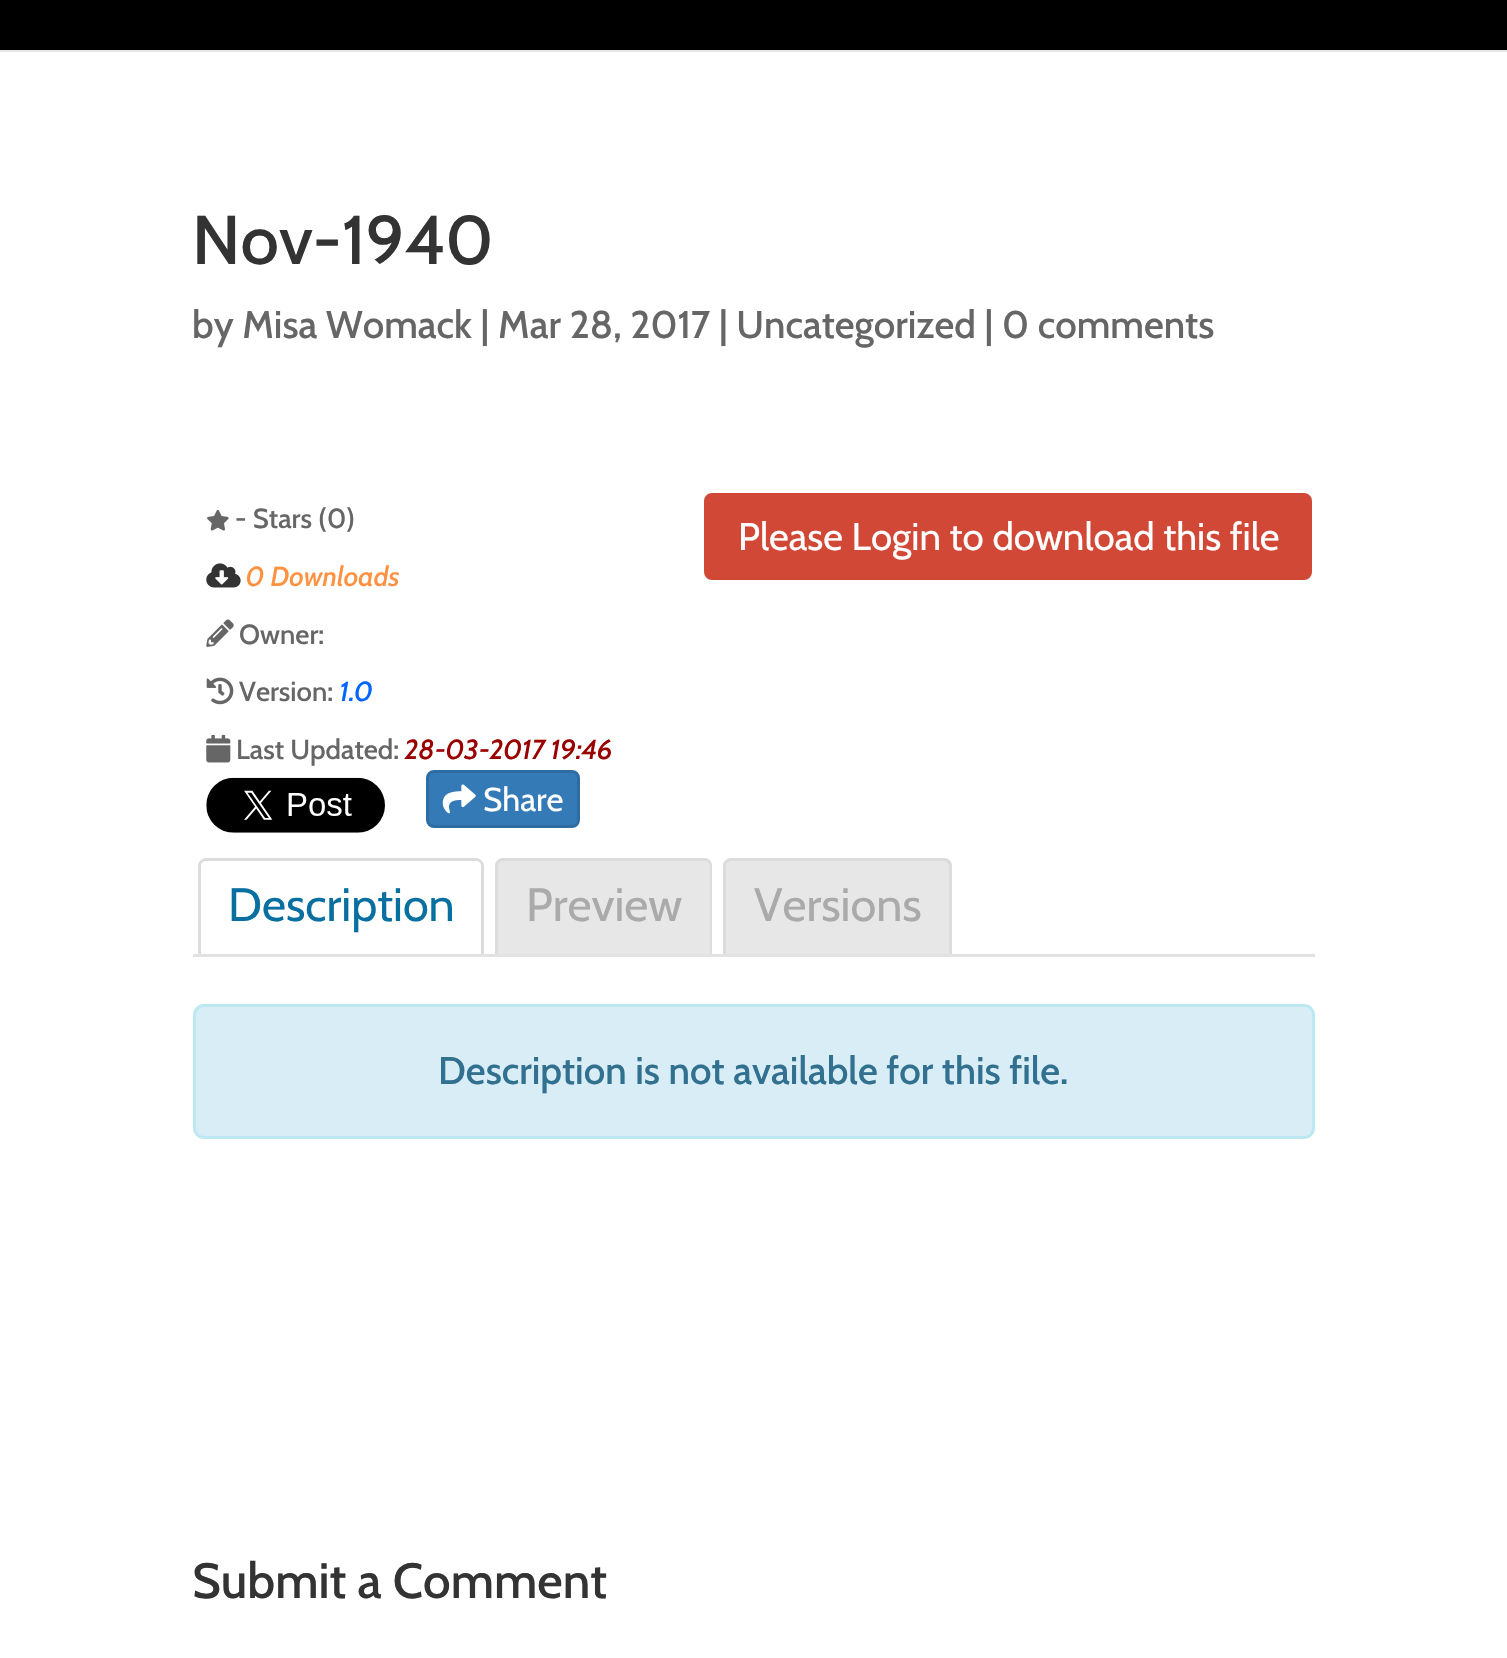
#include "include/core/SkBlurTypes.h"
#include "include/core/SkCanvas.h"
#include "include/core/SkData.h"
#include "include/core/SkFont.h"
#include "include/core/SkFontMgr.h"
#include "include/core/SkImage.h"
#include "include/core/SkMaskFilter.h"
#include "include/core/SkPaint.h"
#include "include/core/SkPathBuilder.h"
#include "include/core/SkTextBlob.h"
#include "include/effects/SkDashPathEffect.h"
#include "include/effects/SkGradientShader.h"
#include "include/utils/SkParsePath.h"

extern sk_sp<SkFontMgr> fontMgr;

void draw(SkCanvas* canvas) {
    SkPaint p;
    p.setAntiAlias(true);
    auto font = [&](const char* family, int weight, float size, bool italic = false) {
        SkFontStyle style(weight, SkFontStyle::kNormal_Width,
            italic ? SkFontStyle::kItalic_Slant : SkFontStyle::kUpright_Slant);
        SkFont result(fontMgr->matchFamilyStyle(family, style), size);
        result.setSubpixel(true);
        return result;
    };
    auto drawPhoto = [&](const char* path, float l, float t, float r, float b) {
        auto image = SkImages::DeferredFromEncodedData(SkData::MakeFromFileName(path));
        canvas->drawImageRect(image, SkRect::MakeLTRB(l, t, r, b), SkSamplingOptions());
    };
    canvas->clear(0xFFFFFFFF);
    p.setColor(0xFFE6E6E6);
    canvas->drawRect(SkRect::MakeLTRB(0, 50, 1507, 52), p);
    p.setColor(0xFF000000);
    canvas->drawRect(SkRect::MakeLTRB(0, 0, 1507, 50), p);
    auto font1 = font("Cabin", 500, 68.75f);
    p.setColor(0xFF333333);
    canvas->drawString("Nov-1940", 192, 264, font1, p);
    auto font2 = font("Cabin", 500, 38.5f);
    p.setColor(0xFF666666);
    canvas->drawString("by Misa Womack | Mar 28, 2017 | Uncategorized | 0 comments", 192, 338, font2, p);
    drawPhoto("media/1.png", 207, 510, 229, 531);
    auto font3 = font("Cabin", 500, 27.5f);
    canvas->drawString("- Stars (0)", 235, 528, font3, p);
    drawPhoto("media/2.png", 206, 563, 241, 588);
    auto font4 = font("Cabin", 500, 27.5f, true);
    p.setColor(0xFFFF9140);
    canvas->drawString("0 Downloads", 246, 586, font4, p);
    drawPhoto("media/3.png", 206, 619, 234, 647);
    p.setColor(0xFF666666);
    canvas->drawString("Owner:", 239, 644, font3, p);
    drawPhoto("media/4.png", 206, 677, 234, 705);
    canvas->drawString("Version:", 239, 701, font3, p);
    p.setColor(0xFF0066FF);
    canvas->drawString("1.0", 340, 701, font4, p);
    drawPhoto("media/5.png", 206, 734, 231, 763);
    p.setColor(0xFF666666);
    canvas->drawString("Last Updated:", 236, 759, font3, p);
    p.setColor(0xFF990000);
    canvas->drawString("28-03-2017 19:46", 405, 759, font4, p);
    p.setColor(0xFFD14836);
    canvas->drawRoundRect(SkRect::MakeLTRB(702.5f, 491.5f, 1313.5f, 581.5f), 9.5f, 9.5f, p);
    p.setStyle(SkPaint::kStroke_Style);
    p.setStrokeWidth(3);
    p.setColor(0xFFFFFFFF);
    canvas->drawRoundRect(SkRect::MakeLTRB(702.5f, 491.5f, 1313.5f, 581.5f), 9.5f, 9.5f, p);
    auto font5 = font("Cabin", 400, 38.5f);
    p.setStyle(SkPaint::kFill_Style);
    canvas->drawString("Please Login to download this file", 738, 550, font5, p);
    drawPhoto("media/6.png", 206, 777, 385, 833);
    p.setColor(0xFF337AB7);
    canvas->drawRoundRect(SkRect::MakeLTRB(427.5f, 771.5f, 578.5f, 826.5f), 6.5f, 6.5f, p);
    p.setStyle(SkPaint::kStroke_Style);
    p.setColor(0xFF2E6DA4);
    canvas->drawRoundRect(SkRect::MakeLTRB(427.5f, 771.5f, 578.5f, 826.5f), 6.5f, 6.5f, p);
    drawPhoto("media/7.png", 442, 784, 476, 814);
    auto font6 = font("Cabin", 400, 33);
    p.setStyle(SkPaint::kFill_Style);
    p.setColor(0xFFFFFFFF);
    canvas->drawString("Share", 483, 811, font6, p);
    p.setColor(0xFFDCDCDC);
    canvas->drawPath(SkPathBuilder(SkPathFillType::kEvenOdd).moveTo(206, 858).lineTo(476, 858).cubicTo(480, 858, 484, 862, 484, 866).lineTo(484, 954).lineTo(198, 954).lineTo(198, 866).cubicTo(198, 862, 202, 858, 206, 858).close().moveTo(206, 861).lineTo(476, 861).cubicTo(479, 861, 481, 863, 481, 866).lineTo(481, 954).lineTo(201, 954).lineTo(201, 866).cubicTo(201, 863, 203, 861, 206, 861).close().detach(), p);
    auto font7 = font("Cabin", 400, 46.75f);
    p.setColor(0xFF086FA1);
    canvas->drawString("Description", 228, 921, font7, p);
    p.setColor(0xFFE7E7E7);
    canvas->drawPath(SkPathBuilder().moveTo(503, 858).lineTo(704, 858).cubicTo(708.5f, 858, 712, 861.5f, 712, 866).lineTo(712, 954).lineTo(495, 954).lineTo(495, 866).cubicTo(495, 861.5f, 498.5f, 858, 503, 858).close().detach(), p);
    p.setColor(0xFFDCDCDC);
    canvas->drawPath(SkPathBuilder(SkPathFillType::kEvenOdd).moveTo(503, 858).lineTo(704, 858).cubicTo(709, 858, 712, 862, 712, 866).lineTo(712, 954).lineTo(495, 954).lineTo(495, 866).cubicTo(495, 862, 499, 858, 503, 858).close().moveTo(503, 861).lineTo(704, 861).cubicTo(707, 861, 710, 863, 710, 866).lineTo(710, 954).lineTo(498, 954).lineTo(498, 866).cubicTo(498, 863, 500, 861, 503, 861).close().detach(), p);
    p.setColor(0xFFAAAAAA);
    canvas->drawString("Preview", 526, 921, font7, p);
    p.setColor(0xFFE7E7E7);
    canvas->drawPath(SkPathBuilder().moveTo(731, 858).lineTo(944, 858).cubicTo(948.5f, 858, 952, 861.5f, 952, 866).lineTo(952, 954).lineTo(723, 954).lineTo(723, 866).cubicTo(723, 861.5f, 726.5f, 858, 731, 858).close().detach(), p);
    p.setColor(0xFFDCDCDC);
    canvas->drawPath(SkPathBuilder(SkPathFillType::kEvenOdd).moveTo(732, 858).lineTo(943, 858).cubicTo(948, 858, 952, 862, 952, 866).lineTo(952, 954).lineTo(723, 954).lineTo(723, 866).cubicTo(723, 862, 727, 858, 732, 858).close().moveTo(732, 861).lineTo(943, 861).cubicTo(946, 861, 949, 863, 949, 866).lineTo(949, 954).lineTo(726, 954).lineTo(726, 866).cubicTo(726, 863, 728, 861, 732, 861).close().detach(), p);
    p.setColor(0xFFAAAAAA);
    canvas->drawString("Versions", 754, 921, font7, p);
    p.setColor(0xFFE2E2E2);
    canvas->drawRect(SkRect::MakeLTRB(193, 954, 1315, 957), p);
    p.setColor(0xFFD9EDF7);
    canvas->drawRoundRect(SkRect::MakeLTRB(194.5f, 1005.5f, 1313.5f, 1137.5f), 9.5f, 9.5f, p);
    p.setStyle(SkPaint::kStroke_Style);
    p.setColor(0xFFBCE8F1);
    canvas->drawRoundRect(SkRect::MakeLTRB(194.5f, 1005.5f, 1313.5f, 1137.5f), 9.5f, 9.5f, p);
    p.setStyle(SkPaint::kFill_Style);
    p.setColor(0xFF31708F);
    canvas->drawString("Description is not available for this file.", 438, 1084, font2, p);
    auto font8 = font("Cabin", 500, 49.5f);
    p.setColor(0xFF333333);
    canvas->drawString("Submit a Comment", 192, 1598, font8, p);
}
